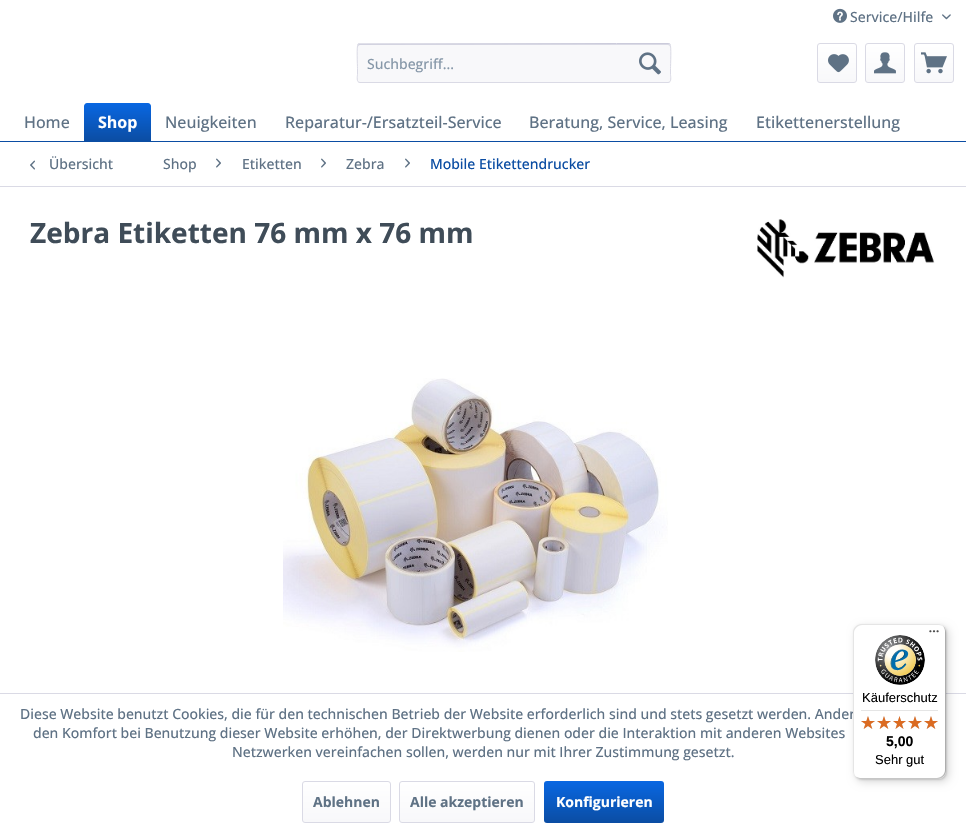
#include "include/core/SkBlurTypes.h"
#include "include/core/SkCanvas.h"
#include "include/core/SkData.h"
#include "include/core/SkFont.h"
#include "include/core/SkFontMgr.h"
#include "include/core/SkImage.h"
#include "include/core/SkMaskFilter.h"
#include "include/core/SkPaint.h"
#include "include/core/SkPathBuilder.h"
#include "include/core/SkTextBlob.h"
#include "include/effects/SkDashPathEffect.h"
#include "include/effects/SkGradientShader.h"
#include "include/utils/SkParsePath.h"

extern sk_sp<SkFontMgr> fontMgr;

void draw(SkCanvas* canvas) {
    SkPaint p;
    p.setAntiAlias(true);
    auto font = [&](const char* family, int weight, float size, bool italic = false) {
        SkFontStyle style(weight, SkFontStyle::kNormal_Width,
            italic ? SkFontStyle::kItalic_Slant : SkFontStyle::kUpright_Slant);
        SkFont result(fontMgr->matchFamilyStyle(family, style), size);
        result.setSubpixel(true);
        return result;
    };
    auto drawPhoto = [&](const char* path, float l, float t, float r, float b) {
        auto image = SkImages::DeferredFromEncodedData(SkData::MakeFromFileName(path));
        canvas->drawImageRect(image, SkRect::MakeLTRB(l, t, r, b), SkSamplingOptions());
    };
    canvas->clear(0xFFFFFFFF);
    drawPhoto("media/1.png", 833, 8, 847, 23);
    auto font1 = font("Open Sans", 500, 14);
    p.setColor(0xFF5F7285);
    canvas->drawString("Service/Hilfe", 850, 22, font1, p);
    drawPhoto("media/2.png", 942, 14, 951, 20);
    p.setColor(0xFFF8F8FA);
    canvas->drawRoundRect(SkRect::MakeLTRB(357, 43, 671, 83), 3, 3, p);
    p.setColor(0xFFDADAE5);
    canvas->drawPath(SkPathBuilder().moveTo(360, 45).lineTo(668, 45).cubicTo(669, 45, 670, 46, 670, 47).cubicTo(670, 46, 670, 44, 668, 44).lineTo(359, 44).lineTo(358, 45).lineTo(358, 47).cubicTo(358, 46, 359, 45, 360, 45).close().detach(), p);
    p.setStyle(SkPaint::kStroke_Style);
    p.setStrokeWidth(1);
    p.setColor(0xFFCBCBDB);
    canvas->drawPath(SkPathBuilder().moveTo(358, 44).lineTo(359, 44).lineTo(616.5f, 43.5f).lineTo(668, 43.5f).lineTo(670, 44).detach(), p);
    p.setColor(0xFFDADAE5);
    canvas->drawPath(SkPathBuilder().moveTo(670, 44).cubicTo(671.5f, 46, 670.5f, 65, 670.5f, 68.5f).lineTo(670.5f, 74.5f).cubicTo(670.5f, 76, 672, 82.5f, 668, 82.5f).lineTo(360, 82.5f).cubicTo(356, 82.5f, 357.5f, 76, 357.5f, 74.5f).lineTo(357.5f, 68.5f).cubicTo(357.5f, 65, 356.5f, 46, 358, 44).detach(), p);
    p.setStyle(SkPaint::kFill_Style);
    p.setColor(0xFF8798A9);
    canvas->drawString("Suchbegriff...", 367, 69, font1, p);
    drawPhoto("media/3.png", 639, 52, 661, 75);
    {
        const SkColor colors[] = {0xFFFFFFFF, 0xFFF8F8FA};
        const float stops[] = {0, 1};
        const SkPoint ends[] = {{837, 44}, {837, 82}};
        p.setShader(SkGradientShader::MakeLinear(ends, colors, stops, 2, SkTileMode::kClamp));
        p.setAlpha(255);
    }
    canvas->drawRoundRect(SkRect::MakeLTRB(818, 44, 856, 82), 2, 2, p);
    p.setStyle(SkPaint::kStroke_Style);
    p.setShader(nullptr);
    p.setColor(0xFFDADAE5);
    canvas->drawRoundRect(SkRect::MakeLTRB(817.5f, 43.5f, 856.5f, 82.5f), 2.5f, 2.5f, p);
    drawPhoto("media/4.png", 828, 54, 849, 73);
    p.setStyle(SkPaint::kFill_Style);
    {
        const SkColor colors[] = {0xFFFFFFFF, 0xFFF8F8FA};
        const float stops[] = {0, 1};
        const SkPoint ends[] = {{885, 44}, {885, 82}};
        p.setShader(SkGradientShader::MakeLinear(ends, colors, stops, 2, SkTileMode::kClamp));
        p.setAlpha(255);
    }
    canvas->drawRoundRect(SkRect::MakeLTRB(866, 44, 904, 82), 2, 2, p);
    p.setStyle(SkPaint::kStroke_Style);
    p.setShader(nullptr);
    p.setColor(0xFFDADAE5);
    canvas->drawRoundRect(SkRect::MakeLTRB(865.5f, 43.5f, 904.5f, 82.5f), 2.5f, 2.5f, p);
    drawPhoto("media/5.png", 874, 52, 896, 74);
    p.setStyle(SkPaint::kFill_Style);
    {
        const SkColor colors[] = {0xFFFFFFFF, 0xFFF8F8FA};
        const float stops[] = {0, 1};
        const SkPoint ends[] = {{934, 44}, {934, 82}};
        p.setShader(SkGradientShader::MakeLinear(ends, colors, stops, 2, SkTileMode::kClamp));
        p.setAlpha(255);
    }
    canvas->drawRoundRect(SkRect::MakeLTRB(915, 44, 953, 82), 2, 2, p);
    p.setStyle(SkPaint::kStroke_Style);
    p.setShader(nullptr);
    p.setColor(0xFFDADAE5);
    canvas->drawRoundRect(SkRect::MakeLTRB(914.5f, 43.5f, 953.5f, 82.5f), 2.5f, 2.5f, p);
    drawPhoto("media/6.png", 921, 52, 947, 74);
    p.setStyle(SkPaint::kFill_Style);
    p.setColor(0xFF0B4DA3);
    canvas->drawRect(SkRect::MakeLTRB(0, 141, 966, 142), p);
    auto font2 = font("Open Sans", 500, 16);
    p.setColor(0xFF5F7285);
    canvas->drawString("Home", 24, 128, font2, p);
    {
        const SkColor colors[] = {0xFF0967E2, 0xFF0B4DA3};
        const float stops[] = {0, 1};
        const SkPoint ends[] = {{118, 103}, {118, 141}};
        p.setShader(SkGradientShader::MakeLinear(ends, colors, stops, 2, SkTileMode::kClamp));
        p.setAlpha(255);
    }
    canvas->drawPath(SkPathBuilder().moveTo(87, 103).lineTo(148, 103).cubicTo(149.5f, 103, 151, 104.5f, 151, 106).lineTo(151, 141).lineTo(84, 141).lineTo(84, 106).cubicTo(84, 104.5f, 85.5f, 103, 87, 103).close().detach(), p);
    auto font3 = font("Open Sans", 700, 16);
    p.setShader(nullptr);
    p.setColor(0xFFFFFFFF);
    canvas->drawString("Shop", 98, 128, font3, p);
    p.setColor(0xFF5F7285);
    {
        const struct { const char* s; float x, y; } items[] = {
            {"Neuigkeiten", 165, 128},
            {"Reparatur-/Ersatzteil-Service", 285, 128},
            {"Beratung, Service, Leasing", 529, 128},
            {"Etikettenerstellung", 756, 128},
        };
        for (auto [s, x, y] : items) {
            canvas->drawString(s, x, y, font2, p);
        }
    }
    p.setColor(0xFFDADAE5);
    canvas->drawRect(SkRect::MakeLTRB(0, 186, 966, 187), p);
    drawPhoto("media/7.png", 30, 160, 35, 170);
    p.setColor(0xFF5F7285);
    canvas->drawString("Übersicht", 49, 169, font1, p);
    canvas->drawString("Shop", 163, 169, font1, p);
    drawPhoto("media/8.png", 216, 158, 221, 168);
    canvas->drawString("Etiketten", 242, 169, font1, p);
    drawPhoto("media/8.png", 321, 158, 326, 168);
    canvas->drawString("Zebra", 346, 169, font1, p);
    drawPhoto("media/8.png", 405, 158, 410, 168);
    p.setColor(0xFF0B4DA3);
    canvas->drawString("Mobile Etikettendrucker", 430, 169, font1, p);
    auto font4 = font("Open Sans", 700, 28);
    p.setColor(0xFF3F4C58);
    canvas->drawString("Zebra Etiketten 76 mm x 76 mm", 30, 243, font4, p);
    drawPhoto("media/9.png", 757, 219, 935, 278);
    drawPhoto("media/10.png", 283, 378, 668, 652);
    p.setColor(0xFFDADAE5);
    canvas->drawRect(SkRect::MakeLTRB(0, 693, 966, 694), p);
    p.setColor(0xFF5F7285);
    {
        const struct { const char* s; float x, y; } items[] = {
            {"Diese Website benutzt Cookies, die für den technischen Betrieb der Website erforderlich sind und stets gesetzt werden. Ander", 20, 719},
            {"den Komfort bei Benutzung dieser Website erhöhen, der Direktwerbung dienen oder die Interaktion mit anderen Websites", 33, 738},
            {"Netzwerken vereinfachen sollen, werden nur mit Ihrer Zustimmung gesetzt.", 232, 757},
        };
        for (auto [s, x, y] : items) {
            canvas->drawString(s, x, y, font1, p);
        }
    }
    {
        const SkColor colors[] = {0xFFFFFFFF, 0xFFF8F8FA};
        const float stops[] = {0, 1};
        const SkPoint ends[] = {{347, 782}, {347, 822}};
        p.setShader(SkGradientShader::MakeLinear(ends, colors, stops, 2, SkTileMode::kClamp));
        p.setAlpha(255);
    }
    canvas->drawRoundRect(SkRect::MakeLTRB(303, 782, 390, 822), 2, 2, p);
    p.setStyle(SkPaint::kStroke_Style);
    p.setShader(nullptr);
    p.setColor(0xFFDADAE5);
    canvas->drawRoundRect(SkRect::MakeLTRB(302.5f, 781.5f, 390.5f, 822.5f), 2.5f, 2.5f, p);
    auto font5 = font("Open Sans", 700, 14);
    p.setStyle(SkPaint::kFill_Style);
    p.setColor(0xFF5F7285);
    canvas->drawString("Ablehnen", 313, 807, font5, p);
    {
        const SkColor colors[] = {0xFFFFFFFF, 0xFFF8F8FA};
        const float stops[] = {0, 1};
        const SkPoint ends[] = {{467, 782}, {467, 822}};
        p.setShader(SkGradientShader::MakeLinear(ends, colors, stops, 2, SkTileMode::kClamp));
        p.setAlpha(255);
    }
    canvas->drawRoundRect(SkRect::MakeLTRB(400, 782, 534, 822), 2, 2, p);
    p.setStyle(SkPaint::kStroke_Style);
    p.setShader(nullptr);
    p.setColor(0xFFDADAE5);
    canvas->drawRoundRect(SkRect::MakeLTRB(399.5f, 781.5f, 534.5f, 822.5f), 2.5f, 2.5f, p);
    p.setStyle(SkPaint::kFill_Style);
    p.setColor(0xFF5F7285);
    canvas->drawString("Alle akzeptieren", 410, 807, font5, p);
    {
        const SkColor colors[] = {0xFF0967E2, 0xFF0B4DA3};
        const float stops[] = {0, 1};
        const SkPoint ends[] = {{604, 781}, {604, 823}};
        p.setShader(SkGradientShader::MakeLinear(ends, colors, stops, 2, SkTileMode::kClamp));
        p.setAlpha(255);
    }
    canvas->drawRoundRect(SkRect::MakeLTRB(544, 781, 664, 823), 3, 3, p);
    p.setShader(nullptr);
    p.setColor(0xFFFFFFFF);
    canvas->drawString("Konfigurieren", 556, 807, font5, p);
    p.setColor(0x26000000);
    p.setMaskFilter(SkMaskFilter::MakeBlur(kNormal_SkBlurStyle, 4));
    canvas->drawRoundRect(SkRect::MakeLTRB(856, 627, 949, 782), 8, 8, p);
    p.setMaskFilter(nullptr);
    p.setMaskFilter(SkMaskFilter::MakeBlur(kNormal_SkBlurStyle, 1));
    canvas->drawRoundRect(SkRect::MakeLTRB(854, 625, 947, 780), 8, 8, p);
    p.setMaskFilter(nullptr);
    p.setColor(0xFFFFFFFF);
    canvas->drawRoundRect(SkRect::MakeLTRB(853, 624, 946, 779), 8, 8, p);
    p.setColor(0xFFE5E5E5);
    canvas->drawPath(SkPathBuilder().moveTo(862, 625).lineTo(939, 625).cubicTo(941, 625, 943, 626, 945, 628).cubicTo(943, 626, 941, 624, 938, 624).lineTo(861, 624).cubicTo(857, 624, 853, 628, 853, 632).lineTo(853, 771).cubicTo(853, 774, 855, 776, 857, 778).cubicTo(855, 776, 854, 774, 854, 772).lineTo(854, 633).cubicTo(854, 629, 858, 625, 862, 625).close().detach(), p);
    p.setColor(0xFFCCCCCC);
    canvas->drawPath(SkPathBuilder().moveTo(854, 775).cubicTo(856, 777, 858, 779, 861, 779).lineTo(938, 779).cubicTo(942, 779, 946, 775, 946, 771).lineTo(946, 632).cubicTo(946, 629, 944, 627, 942, 625).cubicTo(944, 627, 945, 629, 945, 631).lineTo(945, 770).cubicTo(945, 774, 941, 778, 937, 778).lineTo(860, 778).cubicTo(858, 778, 856, 777, 854, 775).close().detach(), p);
    p.setColor(0x33323232);
    canvas->drawPath(SkPathBuilder().moveTo(855, 776).cubicTo(856, 778, 859, 779, 861, 779).lineTo(938, 779).cubicTo(942, 779, 946, 775, 946, 771).lineTo(946, 632).cubicTo(946, 630, 945, 627, 943, 626).cubicTo(944, 627, 945, 629, 945, 631).lineTo(945, 770).cubicTo(945, 775, 942, 778, 937, 778).lineTo(860, 778).cubicTo(858, 778, 856, 777, 855, 776).close().detach(), p);
    drawPhoto("media/11.png", 929, 630, 939, 633);
    p.setColor(0x4DFFFFFF);
    canvas->drawPath(SkPathBuilder().moveTo(855, 776).cubicTo(856, 778, 859, 779, 861, 779).lineTo(938, 779).cubicTo(942, 779, 946, 775, 946, 771).lineTo(946, 770).cubicTo(946, 775, 942, 778, 938, 778).lineTo(860, 778).cubicTo(858, 778, 856, 777, 855, 776).close().detach(), p);
    drawPhoto("media/12.png", 875, 635, 925, 685);
    auto font6 = font("Liberation Sans", 400, 13);
    p.setColor(0xFF000000);
    canvas->drawString("Käuferschutz", 862, 702, font6, p);
    p.setColor(0xFFE5E5E5);
    canvas->drawRect(SkRect::MakeLTRB(861, 710, 938, 711), p);
    drawPhoto("media/13.png", 861, 716, 875, 729);
    drawPhoto("media/13.png", 877, 716, 891, 729);
    drawPhoto("media/14.png", 893, 716, 906, 729);
    drawPhoto("media/13.png", 908, 716, 922, 729);
    drawPhoto("media/13.png", 924, 716, 938, 729);
    drawPhoto("media/15.png", 861, 716, 875, 729);
    drawPhoto("media/15.png", 877, 716, 891, 729);
    drawPhoto("media/16.png", 893, 716, 906, 729);
    drawPhoto("media/15.png", 908, 716, 922, 729);
    drawPhoto("media/15.png", 924, 716, 938, 729);
    auto font7 = font("Liberation Sans", 700, 14);
    p.setColor(0xFF000000);
    canvas->drawString("5,00", 886, 746, font7, p);
    canvas->drawString("Sehr gut", 875, 764, font6, p);
}
